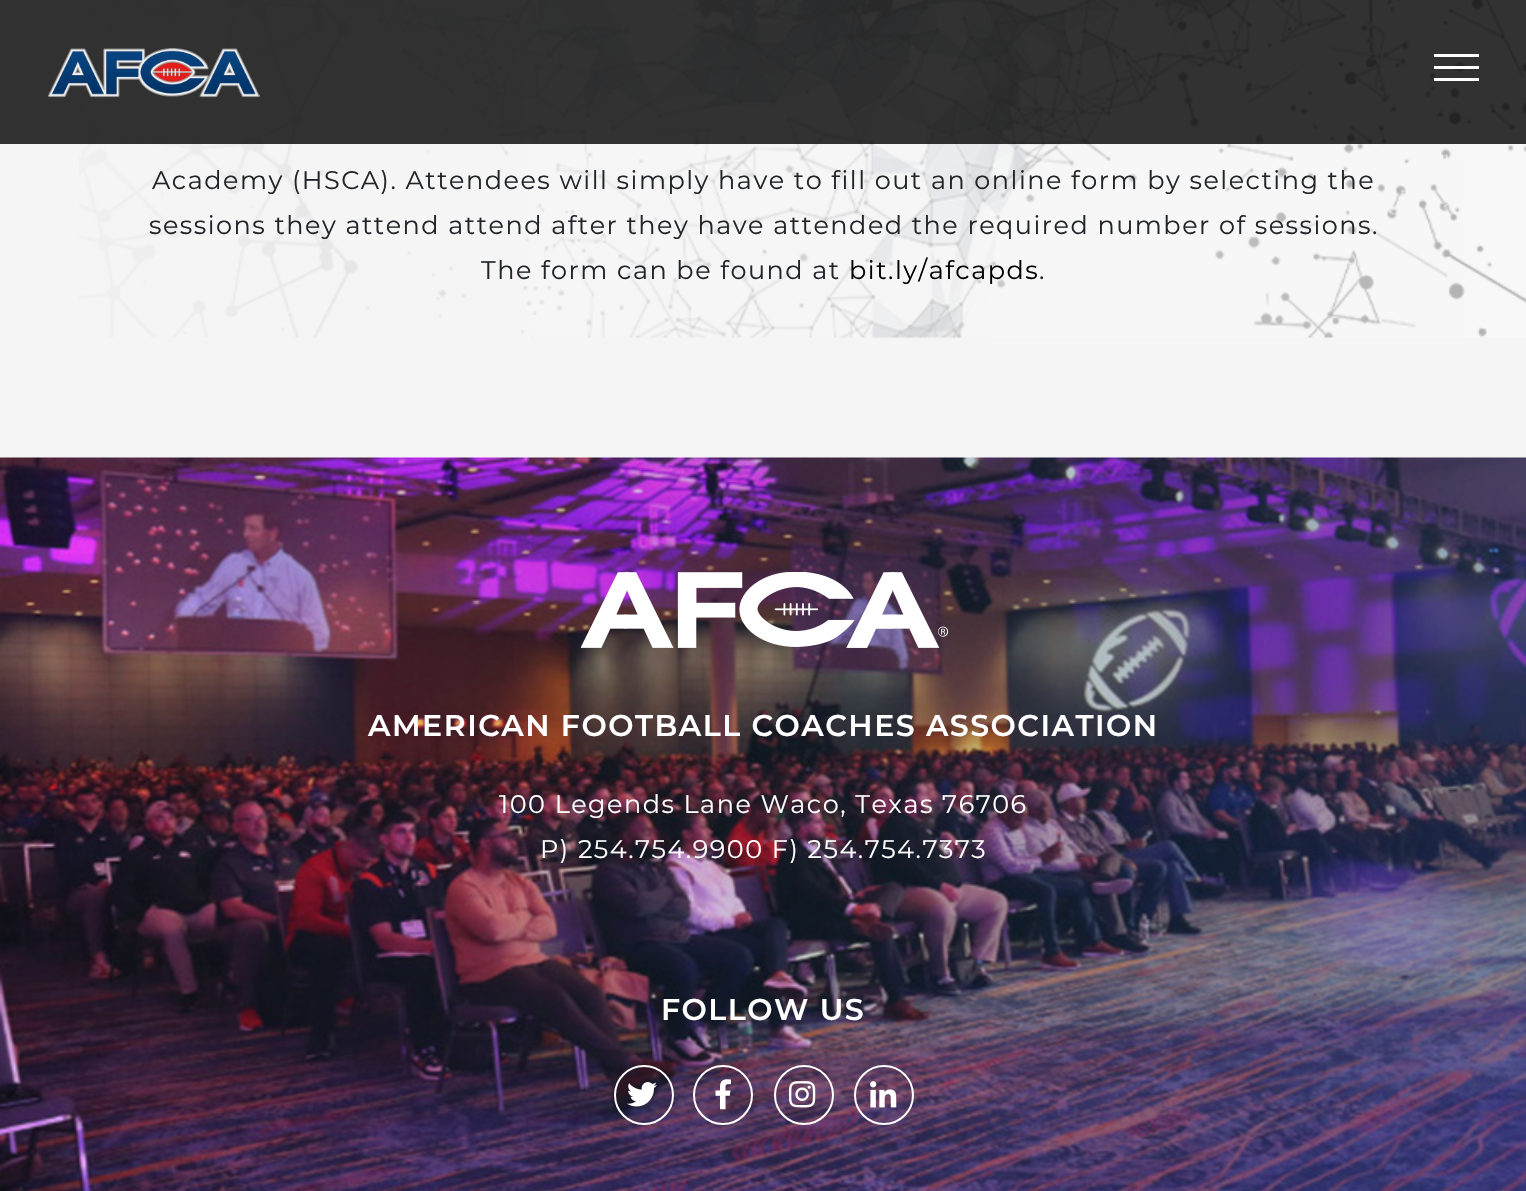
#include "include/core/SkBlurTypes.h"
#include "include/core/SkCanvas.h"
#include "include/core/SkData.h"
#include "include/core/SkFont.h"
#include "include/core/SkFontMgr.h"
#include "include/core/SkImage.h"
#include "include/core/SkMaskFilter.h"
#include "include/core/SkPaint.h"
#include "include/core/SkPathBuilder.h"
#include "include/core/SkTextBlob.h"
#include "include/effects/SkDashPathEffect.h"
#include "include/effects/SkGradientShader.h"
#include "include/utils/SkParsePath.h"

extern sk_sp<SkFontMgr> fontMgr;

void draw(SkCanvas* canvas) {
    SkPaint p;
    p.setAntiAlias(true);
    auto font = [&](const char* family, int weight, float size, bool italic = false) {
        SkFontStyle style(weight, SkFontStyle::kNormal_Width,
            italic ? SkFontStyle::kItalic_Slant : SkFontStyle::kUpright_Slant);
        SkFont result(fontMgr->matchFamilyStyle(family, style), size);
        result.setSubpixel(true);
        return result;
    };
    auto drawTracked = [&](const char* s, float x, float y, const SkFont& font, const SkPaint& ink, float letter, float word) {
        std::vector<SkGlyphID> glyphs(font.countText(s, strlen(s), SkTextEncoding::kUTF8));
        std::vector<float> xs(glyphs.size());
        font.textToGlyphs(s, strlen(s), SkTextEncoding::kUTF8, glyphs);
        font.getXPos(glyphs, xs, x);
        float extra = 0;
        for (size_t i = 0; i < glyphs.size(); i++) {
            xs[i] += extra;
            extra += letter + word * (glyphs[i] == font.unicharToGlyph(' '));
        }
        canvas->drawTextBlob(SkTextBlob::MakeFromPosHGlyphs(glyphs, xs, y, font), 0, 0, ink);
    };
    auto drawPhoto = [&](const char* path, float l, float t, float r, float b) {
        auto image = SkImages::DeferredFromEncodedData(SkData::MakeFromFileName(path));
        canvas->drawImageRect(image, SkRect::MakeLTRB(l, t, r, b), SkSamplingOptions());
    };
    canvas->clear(0xFFF5F5F5);
    drawPhoto("media/2.png", 79, 0, 1526, 338);
    p.setColor(0xCC000000);
    canvas->drawRect(SkRect::MakeLTRB(0, 0, 1526, 144), p);
    drawPhoto("media/1.png", 48, 48, 260, 98);
    {
        const struct { float l, t, r, b; SkColor color; } items[] = {
            {1434, 54, 1479, 57, 0xFFFFFFFF},
            {1434, 66, 1479, 69, 0xFFFFFFFF},
            {1434, 78, 1479, 81, 0xFFFFFFFF},
        };
        for (auto [l, t, r, b, color] : items) {
            p.setColor(color);
            canvas->drawRect(SkRect::MakeLTRB(l, t, r, b), p);
        }
    }
    auto font1 = font("Montserrat", 400, 25.5f);
    p.setColor(0xFF212529);
    {
        const struct { const char* s; float x, y; } items[] = {
            {"Academy (HSCA). Attendees will simply have to fill out an online form by selecting the", 152, 189},
            {"sessions they attend attend after they have attended the required number of sessions.", 149, 234},
            {"The form can be found at", 481, 279},
        };
        for (auto [s, x, y] : items) {
            drawTracked(s, x, y, font1, p, 1.5f, 0);
        }
    }
    p.setColor(0xFF000000);
    drawTracked("bit.ly/afcapds", 849, 279, font1, p, 1.5f, 0);
    p.setColor(0xFF212529);
    drawTracked(".", 1039, 279, font1, p, 1.5f, 0);
    drawPhoto("media/3.png", 0, 457, 1526, 1191);
    drawPhoto("media/4.png", 581, 572, 948, 648);
    auto font2 = font("Montserrat", 600, 30);
    p.setColor(0xFFFFFFFF);
    drawTracked("AMERICAN FOOTBALL COACHES ASSOCIATION", 368, 736, font2, p, 1.5f, 0);
    drawTracked("100 Legends Lane Waco, Texas 76706", 499, 813, font1, p, 1.5f, 0);
    drawTracked("P) 254.754.9900 F) 254.754.7373", 540, 858, font1, p, 1.5f, 0);
    drawTracked("FOLLOW US", 661, 1020, font2, p, 1.5f, 0);
    p.setStyle(SkPaint::kStroke_Style);
    p.setStrokeWidth(2);
    canvas->drawCircle(644, 1095, 29, p);
    drawPhoto("media/5.png", 627, 1082, 657, 1107);
    canvas->drawCircle(723, 1095, 29, p);
    drawPhoto("media/6.png", 715, 1079, 731, 1110);
    canvas->drawCircle(804, 1095, 29, p);
    drawPhoto("media/7.png", 789, 1081, 816, 1108);
    canvas->drawCircle(884, 1095, 29, p);
    drawPhoto("media/8.png", 870, 1081, 897, 1108);
}
